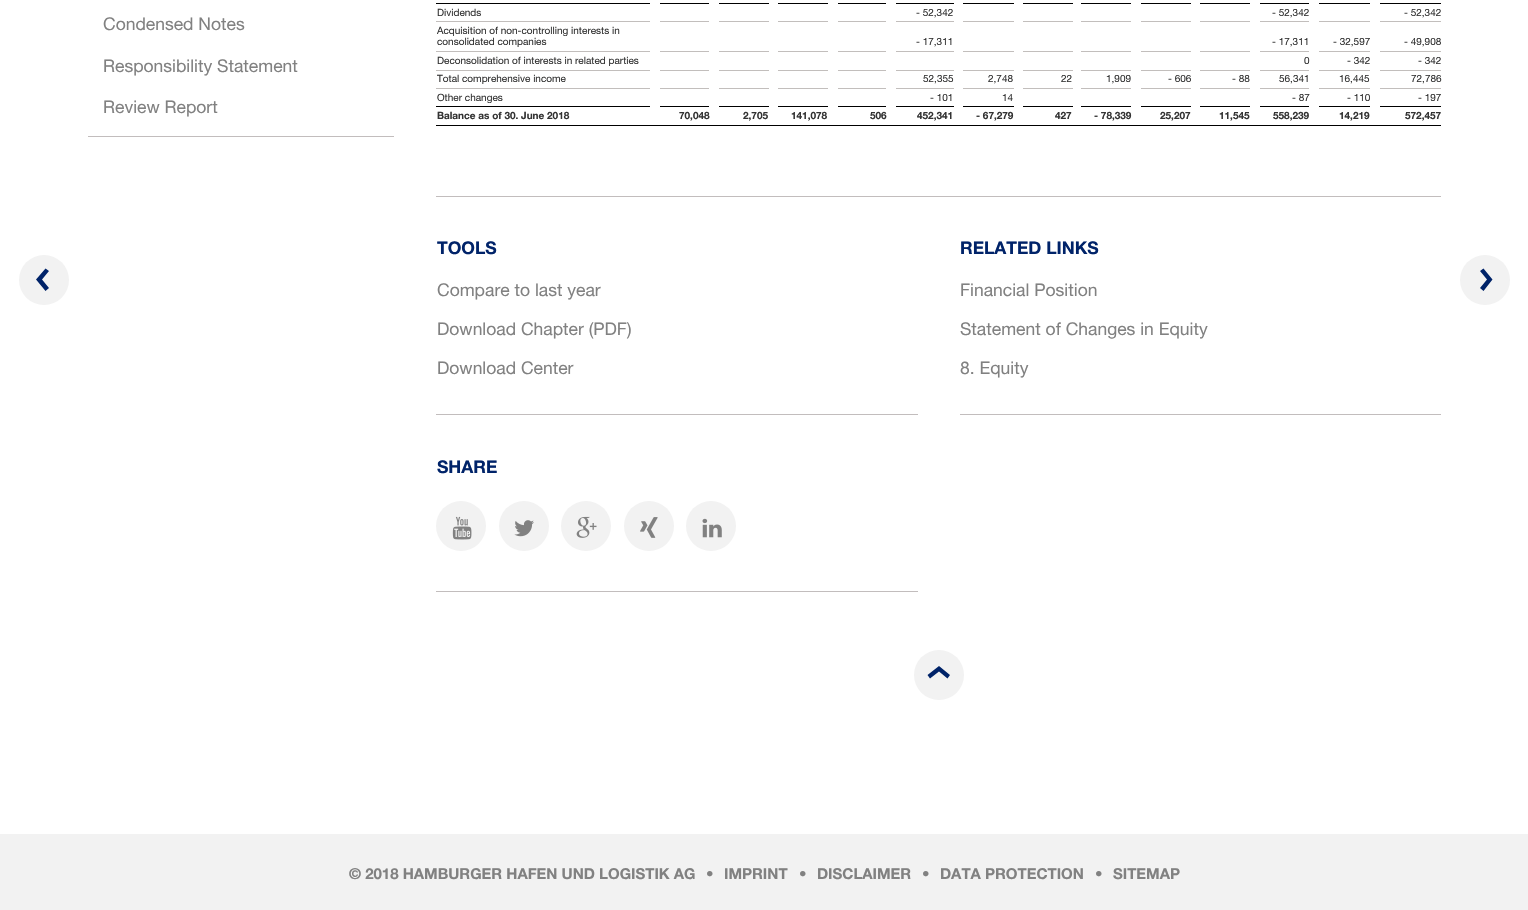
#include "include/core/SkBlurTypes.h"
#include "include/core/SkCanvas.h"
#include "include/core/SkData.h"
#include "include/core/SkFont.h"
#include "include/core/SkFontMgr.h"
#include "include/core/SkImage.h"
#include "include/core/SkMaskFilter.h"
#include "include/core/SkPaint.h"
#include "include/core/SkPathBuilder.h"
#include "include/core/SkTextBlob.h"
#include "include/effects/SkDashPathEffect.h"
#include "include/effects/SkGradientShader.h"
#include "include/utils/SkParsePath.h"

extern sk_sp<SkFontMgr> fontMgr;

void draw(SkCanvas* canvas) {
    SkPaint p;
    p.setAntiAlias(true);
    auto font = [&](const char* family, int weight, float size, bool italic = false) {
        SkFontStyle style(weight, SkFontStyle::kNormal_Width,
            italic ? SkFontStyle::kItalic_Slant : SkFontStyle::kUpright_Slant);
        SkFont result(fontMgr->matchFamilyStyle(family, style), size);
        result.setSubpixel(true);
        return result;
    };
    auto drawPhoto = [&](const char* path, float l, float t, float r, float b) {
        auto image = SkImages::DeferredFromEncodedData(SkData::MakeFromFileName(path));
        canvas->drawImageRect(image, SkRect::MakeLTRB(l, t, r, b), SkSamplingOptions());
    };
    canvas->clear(0xFFFFFFFF);
    p.setColor(0xFFC2BDBD);
    canvas->drawRect(SkRect::MakeLTRB(88, 136, 394, 137), p);
    auto font1 = font("Helvetica Neue", 400, 17.5f);
    p.setColor(0xFF818181);
    {
        const struct { const char* s; float x, y; } items[] = {
            {"Condensed Notes", 103, 30},
            {"Responsibility Statement", 103, 72},
            {"Review Report", 103, 113},
        };
        for (auto [s, x, y] : items) {
            canvas->drawString(s, x, y, font1, p);
        }
    }
    {
        const struct { float l, t, r, b; SkColor color; } items[] = {
            {436, 3, 650, 4, 0xFF000000},
            {660, 3, 709, 4, 0xFF000000},
            {719, 3, 769, 4, 0xFF000000},
            {778, 3, 828, 4, 0xFF000000},
            {838, 3, 886, 4, 0xFF000000},
            {896, 3, 954, 4, 0xFF000000},
            {963, 3, 1014, 4, 0xFF000000},
            {1023, 3, 1073, 4, 0xFF000000},
            {1081, 3, 1131, 4, 0xFF000000},
            {1141, 3, 1191, 4, 0xFF000000},
            {1200, 3, 1250, 4, 0xFF000000},
            {1260, 3, 1309, 4, 0xFF000000},
            {1319, 3, 1370, 4, 0xFF000000},
            {1380, 3, 1441, 4, 0xFF000000},
            {436, 21, 650, 22, 0xFFC2BEBC},
        };
        for (auto [l, t, r, b, color] : items) {
            p.setColor(color);
            canvas->drawRect(SkRect::MakeLTRB(l, t, r, b), p);
        }
    }
    auto font2 = font("Helvetica Neue", 400, 10);
    p.setColor(0xFF333333);
    canvas->drawString("Dividends", 437, 16, font2, p);
    p.setColor(0xFFC2BEBC);
    canvas->drawRect(SkRect::MakeLTRB(896, 21, 954, 22), p);
    p.setColor(0xFF333333);
    canvas->drawString("- 52,342", 916, 16, font2, p);
    p.setColor(0xFFC2BEBC);
    canvas->drawRect(SkRect::MakeLTRB(1260, 21, 1309, 22), p);
    p.setColor(0xFF333333);
    canvas->drawString("- 52,342", 1272, 16, font2, p);
    p.setColor(0xFFC2BEBC);
    canvas->drawRect(SkRect::MakeLTRB(1380, 21, 1441, 22), p);
    p.setColor(0xFF333333);
    canvas->drawString("- 52,342", 1404, 16, font2, p);
    {
        const struct { float l, t, r, b; SkColor color; } items[] = {
            {660, 21, 709, 22, 0xFFC2BEBC},
            {719, 21, 769, 22, 0xFFC2BEBC},
            {778, 21, 828, 22, 0xFFC2BEBC},
            {838, 21, 886, 22, 0xFFC2BEBC},
            {963, 21, 1014, 22, 0xFFC2BEBC},
            {1023, 21, 1073, 22, 0xFFC2BEBC},
            {1081, 21, 1131, 22, 0xFFC2BEBC},
            {1141, 21, 1191, 22, 0xFFC2BEBC},
            {1200, 21, 1250, 22, 0xFFC2BEBC},
            {1319, 21, 1370, 22, 0xFFC2BEBC},
            {436, 51, 650, 52, 0xFFC2BEBC},
        };
        for (auto [l, t, r, b, color] : items) {
            p.setColor(color);
            canvas->drawRect(SkRect::MakeLTRB(l, t, r, b), p);
        }
    }
    p.setColor(0xFF333333);
    canvas->drawString("Acquisition of non-controlling interests in", 437, 34, font2, p);
    canvas->drawString("consolidated companies", 437, 45, font2, p);
    p.setColor(0xFFC2BEBC);
    canvas->drawRect(SkRect::MakeLTRB(896, 51, 954, 52), p);
    p.setColor(0xFF333333);
    canvas->drawString("- 17,311", 916, 45, font2, p);
    p.setColor(0xFFC2BEBC);
    canvas->drawRect(SkRect::MakeLTRB(1260, 51, 1309, 52), p);
    p.setColor(0xFF333333);
    canvas->drawString("- 17,311", 1272, 45, font2, p);
    p.setColor(0xFFC2BEBC);
    canvas->drawRect(SkRect::MakeLTRB(1319, 51, 1370, 52), p);
    p.setColor(0xFF333333);
    canvas->drawString("- 32,597", 1333, 45, font2, p);
    p.setColor(0xFFC2BEBC);
    canvas->drawRect(SkRect::MakeLTRB(1380, 51, 1441, 52), p);
    p.setColor(0xFF333333);
    canvas->drawString("- 49,908", 1404, 45, font2, p);
    {
        const struct { float l, t, r, b; SkColor color; } items[] = {
            {660, 51, 709, 52, 0xFFC2BEBC},
            {719, 51, 769, 52, 0xFFC2BEBC},
            {778, 51, 828, 52, 0xFFC2BEBC},
            {838, 51, 886, 52, 0xFFC2BEBC},
            {963, 51, 1014, 52, 0xFFC2BEBC},
            {1023, 51, 1073, 52, 0xFFC2BEBC},
            {1081, 51, 1131, 52, 0xFFC2BEBC},
            {1141, 51, 1191, 52, 0xFFC2BEBC},
            {1200, 51, 1250, 52, 0xFFC2BEBC},
            {436, 70, 650, 71, 0xFFC2BEBC},
        };
        for (auto [l, t, r, b, color] : items) {
            p.setColor(color);
            canvas->drawRect(SkRect::MakeLTRB(l, t, r, b), p);
        }
    }
    p.setColor(0xFF333333);
    canvas->drawString("Deconsolidation of interests in related parties", 437, 64, font2, p);
    p.setColor(0xFFC2BEBC);
    canvas->drawRect(SkRect::MakeLTRB(1260, 70, 1309, 71), p);
    p.setColor(0xFF333333);
    canvas->drawString("0", 1304, 64, font2, p);
    p.setColor(0xFFC2BEBC);
    canvas->drawRect(SkRect::MakeLTRB(1319, 70, 1370, 71), p);
    p.setColor(0xFF333333);
    canvas->drawString("- 342", 1347, 64, font2, p);
    p.setColor(0xFFC2BEBC);
    canvas->drawRect(SkRect::MakeLTRB(1380, 70, 1441, 71), p);
    p.setColor(0xFF333333);
    canvas->drawString("- 342", 1418, 64, font2, p);
    {
        const struct { float l, t, r, b; SkColor color; } items[] = {
            {660, 70, 709, 71, 0xFFC2BEBC},
            {719, 70, 769, 71, 0xFFC2BEBC},
            {778, 70, 828, 71, 0xFFC2BEBC},
            {838, 70, 886, 71, 0xFFC2BEBC},
            {896, 70, 954, 71, 0xFFC2BEBC},
            {963, 70, 1014, 71, 0xFFC2BEBC},
            {1023, 70, 1073, 71, 0xFFC2BEBC},
            {1081, 70, 1131, 71, 0xFFC2BEBC},
            {1141, 70, 1191, 71, 0xFFC2BEBC},
            {1200, 70, 1250, 71, 0xFFC2BEBC},
            {436, 88, 650, 89, 0xFFC2BEBC},
        };
        for (auto [l, t, r, b, color] : items) {
            p.setColor(color);
            canvas->drawRect(SkRect::MakeLTRB(l, t, r, b), p);
        }
    }
    p.setColor(0xFF333333);
    canvas->drawString("Total comprehensive income", 437, 82, font2, p);
    p.setColor(0xFFC2BEBC);
    canvas->drawRect(SkRect::MakeLTRB(896, 88, 954, 89), p);
    p.setColor(0xFF333333);
    canvas->drawString("52,355", 923, 82, font2, p);
    p.setColor(0xFFC2BEBC);
    canvas->drawRect(SkRect::MakeLTRB(963, 88, 1014, 89), p);
    p.setColor(0xFF333333);
    canvas->drawString("2,748", 988, 82, font2, p);
    p.setColor(0xFFC2BEBC);
    canvas->drawRect(SkRect::MakeLTRB(1023, 88, 1073, 89), p);
    p.setColor(0xFF333333);
    canvas->drawString("22", 1061, 82, font2, p);
    p.setColor(0xFFC2BEBC);
    canvas->drawRect(SkRect::MakeLTRB(1081, 88, 1131, 89), p);
    p.setColor(0xFF333333);
    canvas->drawString("1,909", 1106, 82, font2, p);
    p.setColor(0xFFC2BEBC);
    canvas->drawRect(SkRect::MakeLTRB(1141, 88, 1191, 89), p);
    p.setColor(0xFF333333);
    canvas->drawString("- 606", 1168, 82, font2, p);
    p.setColor(0xFFC2BEBC);
    canvas->drawRect(SkRect::MakeLTRB(1200, 88, 1250, 89), p);
    p.setColor(0xFF333333);
    canvas->drawString("- 88", 1232, 82, font2, p);
    p.setColor(0xFFC2BEBC);
    canvas->drawRect(SkRect::MakeLTRB(1260, 88, 1309, 89), p);
    p.setColor(0xFF333333);
    canvas->drawString("56,341", 1279, 82, font2, p);
    p.setColor(0xFFC2BEBC);
    canvas->drawRect(SkRect::MakeLTRB(1319, 88, 1370, 89), p);
    p.setColor(0xFF333333);
    canvas->drawString("16,445", 1339, 82, font2, p);
    p.setColor(0xFFC2BEBC);
    canvas->drawRect(SkRect::MakeLTRB(1380, 88, 1441, 89), p);
    p.setColor(0xFF333333);
    canvas->drawString("72,786", 1411, 82, font2, p);
    {
        const struct { float l, t, r, b; SkColor color; } items[] = {
            {660, 88, 709, 89, 0xFFC2BEBC},
            {719, 88, 769, 89, 0xFFC2BEBC},
            {778, 88, 828, 89, 0xFFC2BEBC},
            {838, 88, 886, 89, 0xFFC2BEBC},
            {436, 106, 650, 107, 0xFF000000},
        };
        for (auto [l, t, r, b, color] : items) {
            p.setColor(color);
            canvas->drawRect(SkRect::MakeLTRB(l, t, r, b), p);
        }
    }
    p.setColor(0xFF333333);
    canvas->drawString("Other changes", 437, 101, font2, p);
    p.setColor(0xFF000000);
    canvas->drawRect(SkRect::MakeLTRB(896, 106, 954, 107), p);
    p.setColor(0xFF333333);
    canvas->drawString("- 101", 930, 101, font2, p);
    p.setColor(0xFF000000);
    canvas->drawRect(SkRect::MakeLTRB(963, 106, 1014, 107), p);
    p.setColor(0xFF333333);
    canvas->drawString("14", 1002, 101, font2, p);
    p.setColor(0xFF000000);
    canvas->drawRect(SkRect::MakeLTRB(1260, 106, 1309, 107), p);
    p.setColor(0xFF333333);
    canvas->drawString("- 87", 1292, 101, font2, p);
    p.setColor(0xFF000000);
    canvas->drawRect(SkRect::MakeLTRB(1319, 106, 1370, 107), p);
    p.setColor(0xFF333333);
    canvas->drawString("- 110", 1347, 101, font2, p);
    p.setColor(0xFF000000);
    canvas->drawRect(SkRect::MakeLTRB(1380, 106, 1441, 107), p);
    p.setColor(0xFF333333);
    canvas->drawString("- 197", 1418, 101, font2, p);
    {
        const struct { float l, t, r, b; SkColor color; } items[] = {
            {660, 106, 709, 107, 0xFF000000},
            {719, 106, 769, 107, 0xFF000000},
            {778, 106, 828, 107, 0xFF000000},
            {838, 106, 886, 107, 0xFF000000},
            {1023, 106, 1073, 107, 0xFF000000},
            {1081, 106, 1131, 107, 0xFF000000},
            {1141, 106, 1191, 107, 0xFF000000},
            {1200, 106, 1250, 107, 0xFF000000},
            {436, 125, 1441, 126, 0xFF000000},
        };
        for (auto [l, t, r, b, color] : items) {
            p.setColor(color);
            canvas->drawRect(SkRect::MakeLTRB(l, t, r, b), p);
        }
    }
    auto font3 = font("Helvetica Neue", 700, 10);
    p.setColor(0xFF333333);
    {
        const struct { const char* s; float x, y; } items[] = {
            {"Balance as of 30. June 2018", 437, 119},
            {"70,048", 679, 119},
            {"2,705", 743, 119},
            {"141,078", 791, 119},
            {"506", 870, 119},
            {"452,341", 917, 119},
            {"- 67,279", 976, 119},
            {"427", 1055, 119},
            {"- 78,339", 1094, 119},
            {"25,207", 1160, 119},
            {"11,545", 1219, 119},
            {"558,239", 1273, 119},
            {"14,219", 1339, 119},
            {"572,457", 1405, 119},
        };
        for (auto [s, x, y] : items) {
            canvas->drawString(s, x, y, font3, p);
        }
    }
    p.setColor(0xFFC2BDBD);
    canvas->drawRect(SkRect::MakeLTRB(436, 196, 1441, 197), p);
    canvas->drawRect(SkRect::MakeLTRB(436, 414, 918, 415), p);
    auto font4 = font("Helvetica Neue", 700, 17.5f);
    p.setColor(0xFF002369);
    canvas->drawString("TOOLS", 437, 254, font4, p);
    p.setColor(0xFF818181);
    {
        const struct { const char* s; float x, y; } items[] = {
            {"Compare to last year", 437, 296},
            {"Download Chapter (PDF)", 437, 335},
            {"Download Center", 437, 374},
        };
        for (auto [s, x, y] : items) {
            canvas->drawString(s, x, y, font1, p);
        }
    }
    p.setColor(0xFFC2BDBD);
    canvas->drawRect(SkRect::MakeLTRB(960, 414, 1441, 415), p);
    p.setColor(0xFF002369);
    canvas->drawString("RELATED LINKS", 960, 254, font4, p);
    p.setColor(0xFF818181);
    {
        const struct { const char* s; float x, y; } items[] = {
            {"Financial Position", 960, 296},
            {"Statement of Changes in Equity", 960, 335},
            {"8. Equity", 960, 374},
        };
        for (auto [s, x, y] : items) {
            canvas->drawString(s, x, y, font1, p);
        }
    }
    p.setColor(0xFFC2BDBD);
    canvas->drawRect(SkRect::MakeLTRB(436, 591, 918, 592), p);
    p.setColor(0xFF002369);
    canvas->drawString("SHARE", 437, 473, font4, p);
    p.setColor(0xFFF2F2F2);
    canvas->drawCircle(461, 526, 25, p);
    drawPhoto("media/1.png", 452, 516, 472, 540);
    canvas->drawCircle(524, 526, 25, p);
    drawPhoto("media/2.png", 514, 520, 534, 537);
    canvas->drawCircle(586, 526, 25, p);
    drawPhoto("media/3.png", 576, 516, 597, 538);
    canvas->drawCircle(649, 526, 25, p);
    drawPhoto("media/4.png", 640, 517, 658, 538);
    canvas->drawCircle(711, 526, 25, p);
    drawPhoto("media/5.png", 702, 518, 722, 538);
    canvas->drawCircle(939, 675, 25, p);
    p.setColor(0xFF002369);
    canvas->drawPath(SkPathBuilder().moveTo(939, 666).lineTo(950, 675).lineTo(947.5f, 678.5f).lineTo(939, 671.5f).lineTo(930, 678.5f).lineTo(927.5f, 675).close().detach(), p);
    p.setColor(0xFFF2F2F2);
    canvas->drawCircle(44, 280, 25, p);
    p.setColor(0xFF002369);
    canvas->drawPath(SkPathBuilder().moveTo(36, 279.5f).lineTo(45.5f, 268.5f).lineTo(49, 271).lineTo(42, 279.5f).lineTo(49, 288).lineTo(45.5f, 291).close().detach(), p);
    p.setColor(0xFFF2F2F2);
    canvas->drawCircle(1485, 280, 25, p);
    p.setColor(0xFF002369);
    canvas->drawPath(SkPathBuilder().moveTo(1492.5f, 279.5f).lineTo(1483.5f, 291).lineTo(1480, 288).lineTo(1487, 279.5f).lineTo(1480, 271).lineTo(1483.5f, 268.5f).close().detach(), p);
    p.setColor(0xFFF2F2F2);
    canvas->drawRect(SkRect::MakeLTRB(0, 834, 1528, 910), p);
    auto font5 = font("Helvetica Neue", 700, 15);
    p.setColor(0xFF818181);
    {
        const struct { const char* s; float x, y; } items[] = {
            {"© 2018 HAMBURGER HAFEN UND LOGISTIK AG", 349, 879},
            {"•", 706, 879},
            {"IMPRINT", 724, 879},
            {"•", 799, 879},
            {"DISCLAIMER", 817, 879},
            {"•", 922, 879},
            {"DATA PROTECTION", 940, 879},
            {"•", 1095, 879},
            {"SITEMAP", 1113, 879},
        };
        for (auto [s, x, y] : items) {
            canvas->drawString(s, x, y, font5, p);
        }
    }
}
